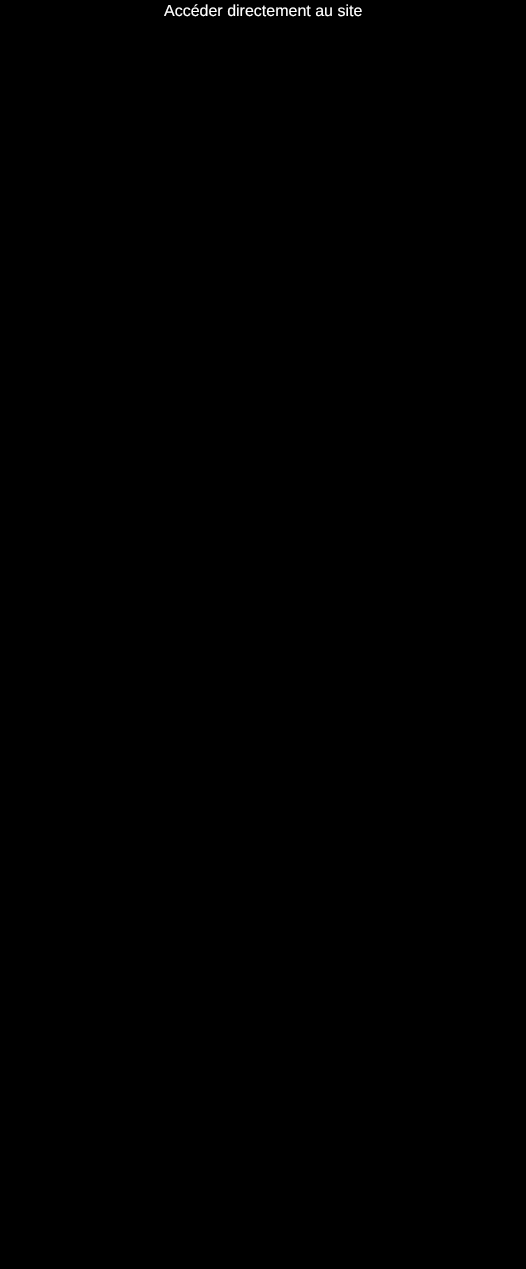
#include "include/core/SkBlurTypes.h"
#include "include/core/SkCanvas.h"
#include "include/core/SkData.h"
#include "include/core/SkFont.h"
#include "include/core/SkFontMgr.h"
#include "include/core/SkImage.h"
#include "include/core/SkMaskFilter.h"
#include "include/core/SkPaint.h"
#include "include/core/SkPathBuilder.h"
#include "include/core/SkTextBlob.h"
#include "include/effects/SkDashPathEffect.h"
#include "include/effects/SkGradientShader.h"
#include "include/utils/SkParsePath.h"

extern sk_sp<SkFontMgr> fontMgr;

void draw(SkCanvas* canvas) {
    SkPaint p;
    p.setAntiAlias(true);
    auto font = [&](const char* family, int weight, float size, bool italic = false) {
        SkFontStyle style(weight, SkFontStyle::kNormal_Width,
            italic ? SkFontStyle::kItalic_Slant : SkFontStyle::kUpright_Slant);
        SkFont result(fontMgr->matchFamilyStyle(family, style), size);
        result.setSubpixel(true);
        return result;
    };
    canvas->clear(0xFF000000);
    auto font1 = font("Liberation Sans", 400, 16);
    p.setColor(0xFFFFFFFF);
    canvas->drawString("Accéder directement au site", 164, 16, font1, p);
}
